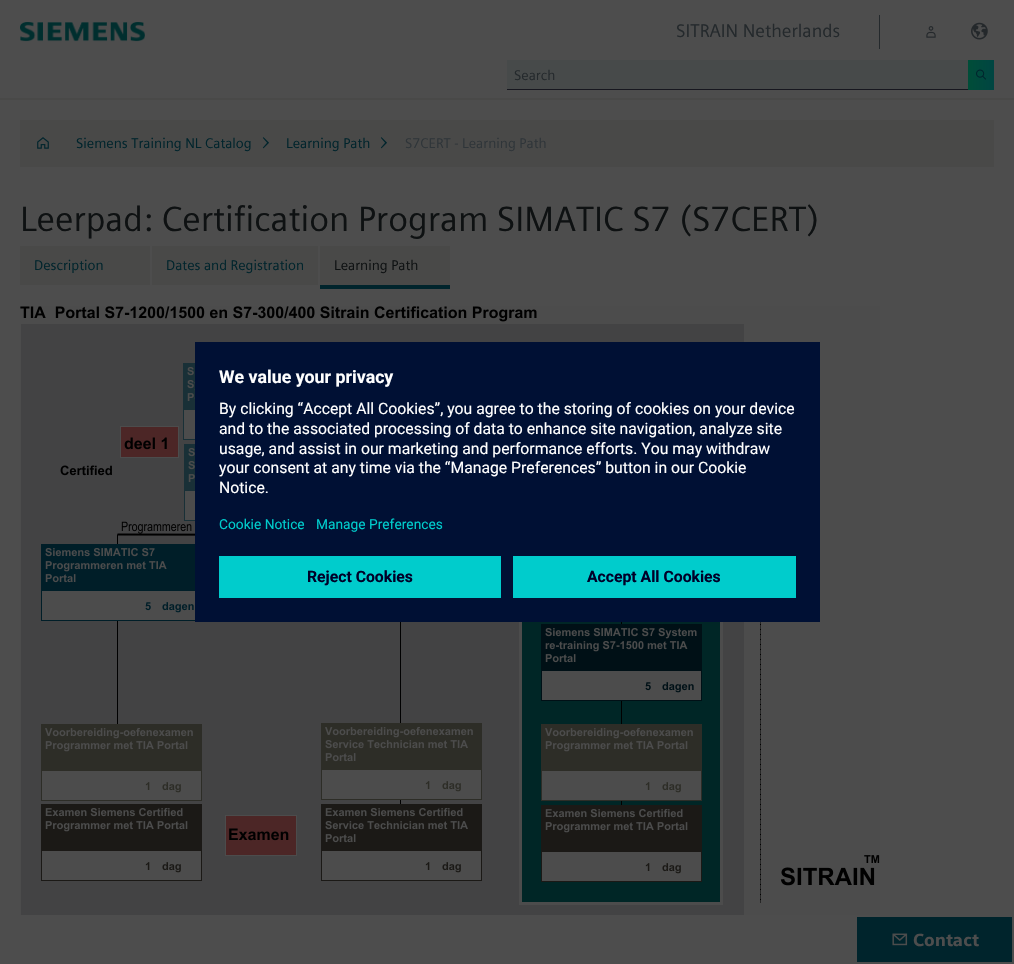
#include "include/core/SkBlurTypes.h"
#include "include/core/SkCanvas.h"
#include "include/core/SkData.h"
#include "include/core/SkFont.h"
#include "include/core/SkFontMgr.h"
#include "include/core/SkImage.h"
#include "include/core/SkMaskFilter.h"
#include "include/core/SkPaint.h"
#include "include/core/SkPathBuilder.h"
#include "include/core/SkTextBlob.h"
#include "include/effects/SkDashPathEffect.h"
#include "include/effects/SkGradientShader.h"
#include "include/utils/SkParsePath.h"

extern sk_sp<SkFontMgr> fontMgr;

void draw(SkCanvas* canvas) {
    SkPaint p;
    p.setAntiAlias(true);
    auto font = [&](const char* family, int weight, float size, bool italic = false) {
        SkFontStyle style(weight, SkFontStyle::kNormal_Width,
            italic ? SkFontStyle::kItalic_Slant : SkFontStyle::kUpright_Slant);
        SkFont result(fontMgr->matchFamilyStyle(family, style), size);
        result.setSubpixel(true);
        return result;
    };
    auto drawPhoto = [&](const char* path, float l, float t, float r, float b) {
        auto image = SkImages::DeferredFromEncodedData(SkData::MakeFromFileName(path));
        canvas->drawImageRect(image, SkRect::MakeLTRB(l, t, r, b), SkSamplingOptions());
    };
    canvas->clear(0xFF4D4D4D);
    p.setColor(0xFF494948);
    canvas->drawRect(SkRect::MakeLTRB(0, 98, 1014, 100), p);
    drawPhoto("media/1.png", 20, 22, 145, 42);
    p.setColor(0xFF24292C);
    canvas->drawRect(SkRect::MakeLTRB(879, 15, 880, 49), p);
    auto font1 = font("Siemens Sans", 400, 18.25f);
    canvas->drawString("SITRAIN Netherlands", 676, 37, font1, p);
    drawPhoto("media/2.png", 926, 26, 936, 38);
    drawPhoto("media/3.png", 971, 22, 988, 40);
    p.setColor(0xFF474A4A);
    canvas->drawRect(SkRect::MakeLTRB(507, 60, 968, 89), p);
    p.setColor(0xFF17171F);
    canvas->drawRect(SkRect::MakeLTRB(507, 89, 969, 90), p);
    auto font2 = font("Siemens Sans", 400, 14);
    p.setColor(0xFF24292C);
    canvas->drawString("Search", 514, 80, font2, p);
    {
        const SkColor colors[] = {0xFF004D38, 0xFF004542};
        const float stops[] = {0, 1};
        const SkPoint ends[] = {{968, 75}, {994, 75}};
        p.setShader(SkGradientShader::MakeLinear(ends, colors, stops, 2, SkTileMode::kClamp));
        p.setAlpha(255);
    }
    canvas->drawRect(SkRect::MakeLTRB(968, 60, 994, 90), p);
    drawPhoto("media/4.png", 976, 69, 986, 80);
    p.setShader(nullptr);
    p.setColor(0xFF494948);
    canvas->drawRect(SkRect::MakeLTRB(20, 120, 994, 167), p);
    drawPhoto("media/5.png", 37, 137, 49, 149);
    p.setColor(0xFF00242C);
    canvas->drawString("Siemens Training NL Catalog", 76, 148, font2, p);
    drawPhoto("media/6.png", 262, 137, 269, 149);
    canvas->drawString("Learning Path", 286, 148, font2, p);
    drawPhoto("media/6.png", 380, 137, 387, 149);
    p.setColor(0xFF2F3539);
    canvas->drawString("S7CERT - Learning Path", 405, 148, font2, p);
    auto font3 = font("Siemens Sans", 400, 35);
    p.setColor(0xFF0E1112);
    canvas->drawString("Leerpad: Certification Program SIMATIC S7 (S7CERT)", 20, 231, font3, p);
    p.setColor(0xFF494948);
    canvas->drawRect(SkRect::MakeLTRB(20, 246, 150, 285), p);
    p.setColor(0xFF00242C);
    canvas->drawString("Description", 34, 270, font2, p);
    p.setColor(0xFF494948);
    canvas->drawRect(SkRect::MakeLTRB(152, 246, 318, 285), p);
    p.setColor(0xFF00242C);
    canvas->drawString("Dates and Registration", 166, 270, font2, p);
    p.setColor(0xFF494948);
    canvas->drawRect(SkRect::MakeLTRB(320, 246, 450, 285), p);
    p.setColor(0xFF00242C);
    canvas->drawRect(SkRect::MakeLTRB(320, 285, 450, 289), p);
    p.setColor(0xFF0E1112);
    canvas->drawString("Learning Path", 334, 270, font2, p);
    drawPhoto("media/7.png", 20, 306, 880, 915);
    p.setColor(0xFF001034);
    canvas->drawRect(SkRect::MakeLTRB(195, 342, 820, 622), p);
    auto font4 = font("Roboto", 700, 17.75f);
    p.setColor(0xFFFFFFFF);
    canvas->drawString("We value your privacy", 219, 383, font4, p);
    auto font5 = font("Roboto", 400, 15.75f);
    {
        const struct { const char* s; float x, y; } items[] = {
            {"By clicking “Accept All Cookies”, you agree to the storing of cookies on your device", 219, 414},
            {"and to the associated processing of data to enhance site navigation, analyze site", 219, 434},
            {"usage, and assist in our marketing and performance efforts. You may withdraw", 219, 454},
            {"your consent at any time via the “Manage Preferences” button in our Cookie", 219, 473},
            {"Notice.", 219, 493},
        };
        for (auto [s, x, y] : items) {
            canvas->drawString(s, x, y, font5, p);
        }
    }
    auto font6 = font("Roboto", 400, 13.75f);
    p.setColor(0xFF00CCCC);
    canvas->drawString("Cookie Notice", 219, 529, font6, p);
    canvas->drawString("Manage Preferences", 316, 529, font6, p);
    canvas->drawRect(SkRect::MakeLTRB(219, 556, 501, 598), p);
    auto font7 = font("Roboto", 700, 15.75f);
    p.setColor(0xFF000028);
    canvas->drawString("Reject Cookies", 307, 582, font7, p);
    p.setColor(0xFF00CCCC);
    canvas->drawRect(SkRect::MakeLTRB(513, 556, 796, 598), p);
    p.setColor(0xFF000028);
    canvas->drawString("Accept All Cookies", 587, 582, font7, p);
    p.setColor(0xFF00242C);
    canvas->drawRect(SkRect::MakeLTRB(857, 917, 1012, 962), p);
    drawPhoto("media/8.png", 892, 933, 908, 946);
    auto font8 = font("Siemens Sans", 900, 17.5f);
    p.setColor(0xFF4D4D4D);
    canvas->drawString("Contact", 913, 946, font8, p);
}
